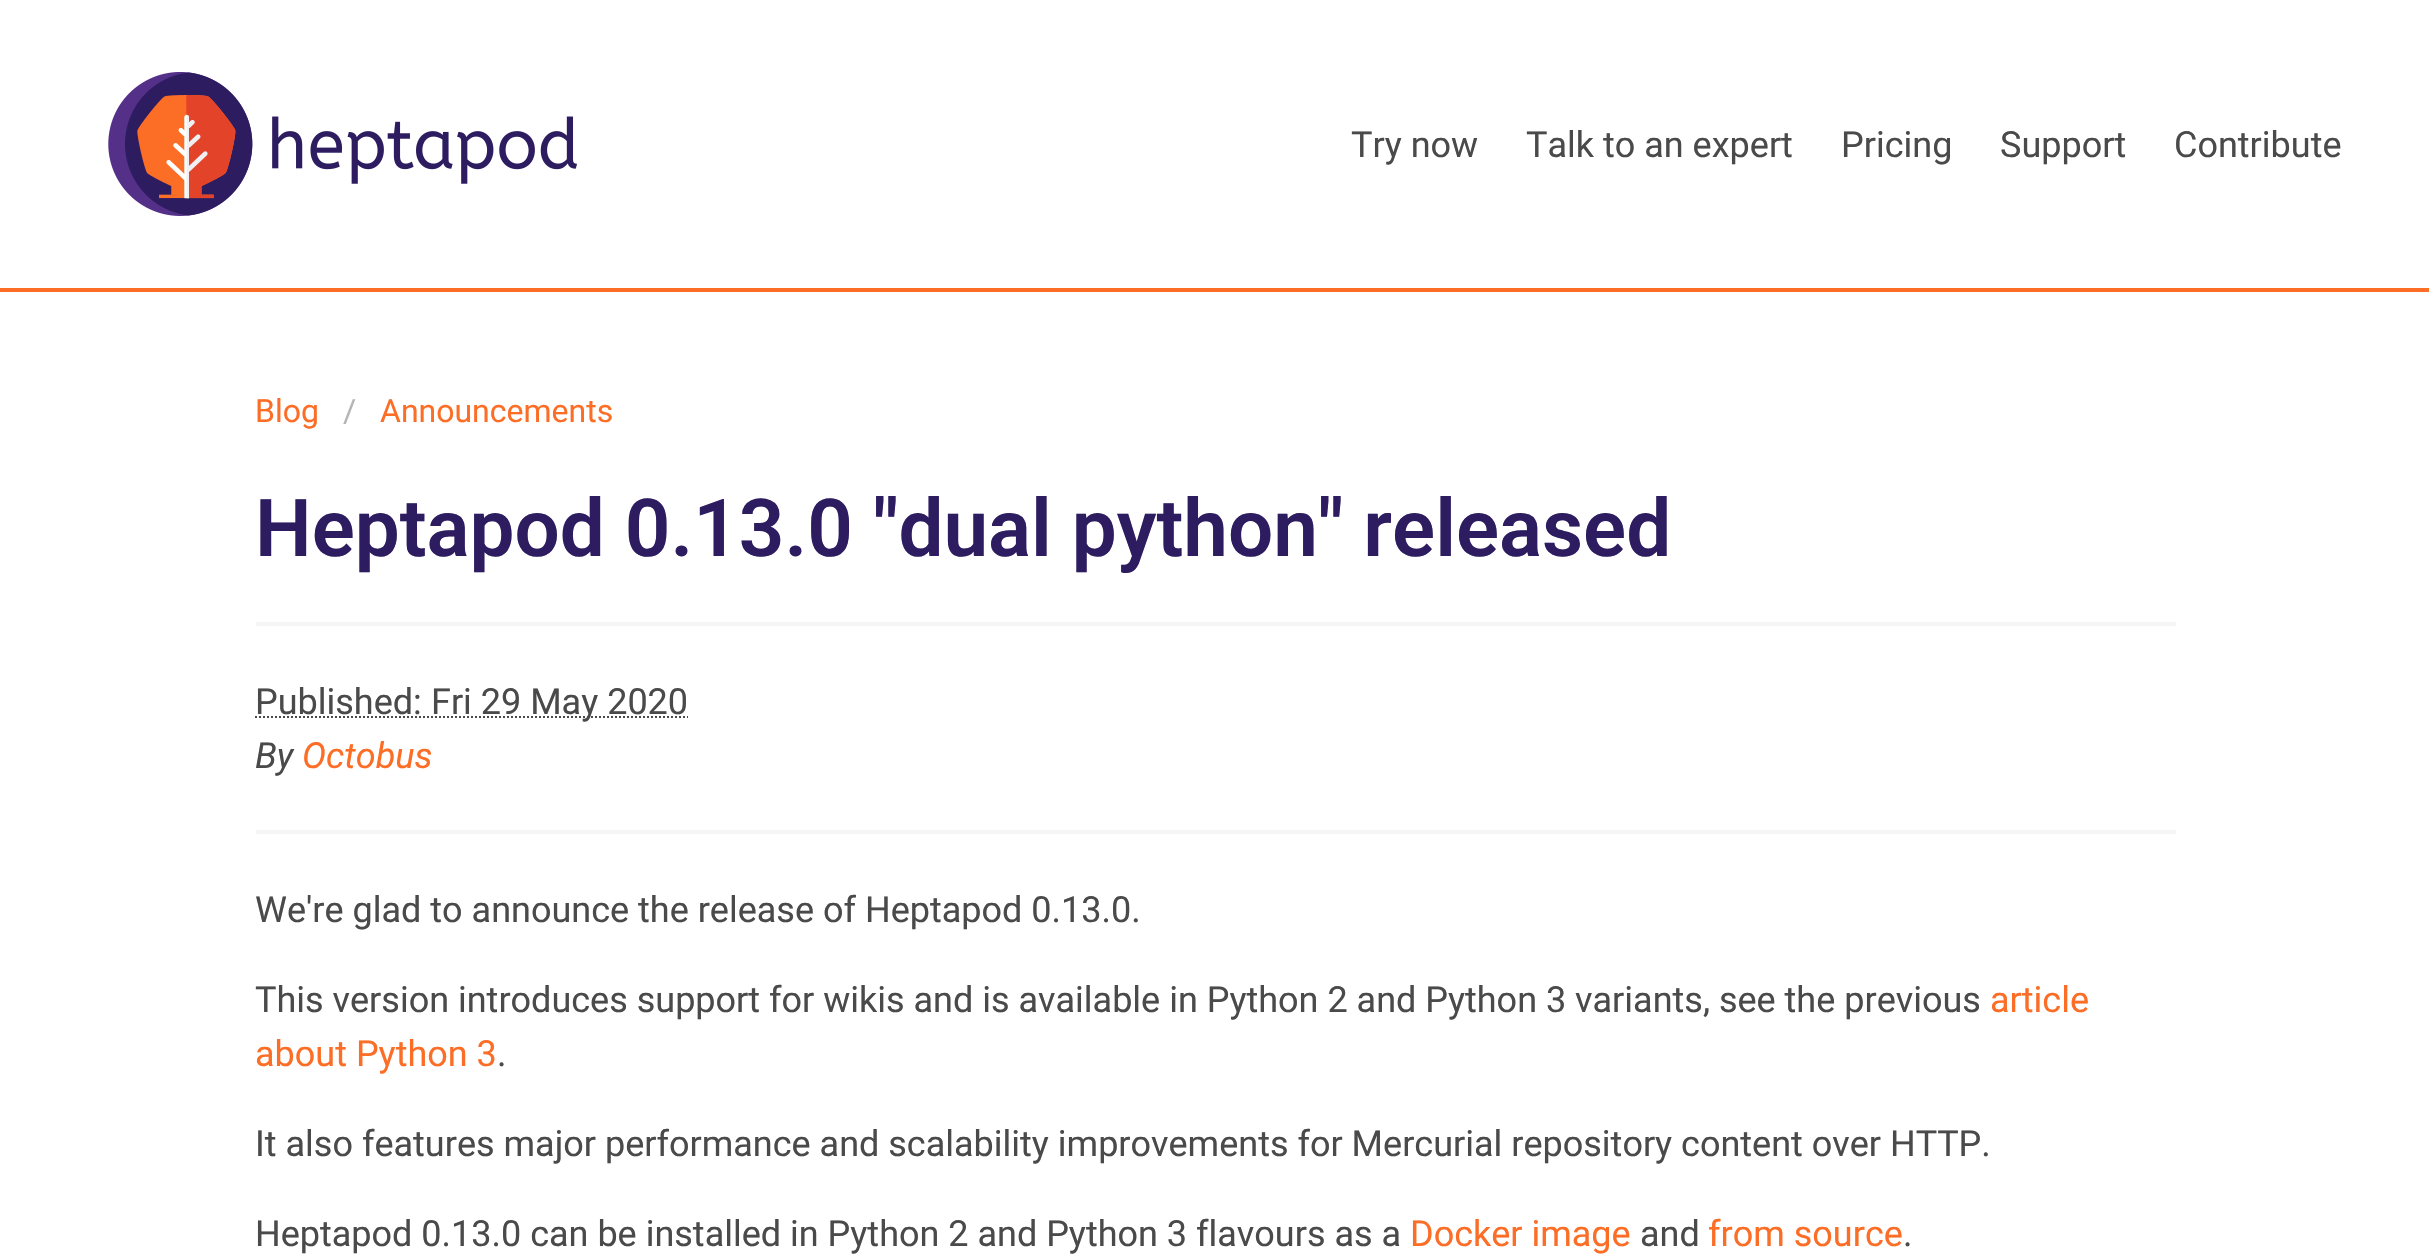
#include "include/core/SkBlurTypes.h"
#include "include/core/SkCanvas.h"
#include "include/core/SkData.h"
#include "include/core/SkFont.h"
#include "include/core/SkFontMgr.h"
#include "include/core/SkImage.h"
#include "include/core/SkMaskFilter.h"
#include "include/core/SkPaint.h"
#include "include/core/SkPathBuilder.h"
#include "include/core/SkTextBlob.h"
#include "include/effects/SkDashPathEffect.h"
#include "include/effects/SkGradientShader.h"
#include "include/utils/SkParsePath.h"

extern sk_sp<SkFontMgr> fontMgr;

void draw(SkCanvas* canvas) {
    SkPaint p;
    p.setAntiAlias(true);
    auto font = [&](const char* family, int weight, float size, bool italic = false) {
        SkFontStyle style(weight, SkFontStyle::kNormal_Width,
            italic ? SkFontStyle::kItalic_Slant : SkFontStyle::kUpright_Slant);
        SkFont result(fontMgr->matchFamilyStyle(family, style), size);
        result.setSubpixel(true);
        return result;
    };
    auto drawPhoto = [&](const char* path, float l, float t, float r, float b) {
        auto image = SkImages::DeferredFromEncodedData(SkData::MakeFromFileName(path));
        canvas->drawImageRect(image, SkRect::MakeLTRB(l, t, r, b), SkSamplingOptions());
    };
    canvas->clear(0xFFFFFFFF);
    p.setColor(0xFFFC6D26);
    canvas->drawRect(SkRect::MakeLTRB(0, 288, 2429, 292), p);
    drawPhoto("media/1.png", 108, 72, 577, 216);
    auto font1 = font("Roboto", 400, 36);
    p.setColor(0xFF4A4A4A);
    {
        const struct { const char* s; float x, y; } items[] = {
            {"Try now", 1351, 157},
            {"Talk to an expert", 1526, 157},
            {"Pricing", 1841, 157},
            {"Support", 2000, 157},
            {"Contribute", 2174, 157},
        };
        for (auto [s, x, y] : items) {
            canvas->drawString(s, x, y, font1, p);
        }
    }
    auto font2 = font("Roboto", 400, 32);
    p.setColor(0xFFFC6D26);
    canvas->drawString("Blog", 255, 422, font2, p);
    p.setColor(0xFFB5B5B5);
    canvas->drawString("/", 343, 422, font2, p);
    p.setColor(0xFFFC6D26);
    canvas->drawString("Announcements", 380, 422, font2, p);
    auto font3 = font("Roboto", 600, 80);
    p.setColor(0xFF2D1C60);
    canvas->drawString("Heptapod 0.13.0 \"dual python\" released", 255, 556, font3, p);
    p.setColor(0xFFF5F5F5);
    canvas->drawRect(SkRect::MakeLTRB(256, 622, 2176, 626), p);
    p.setColor(0xFF4A4A4A);
    canvas->drawString("Published:", 255, 714, font1, p);
    p.setStyle(SkPaint::kStroke_Style);
    p.setStrokeWidth(2);
    p.setPathEffect(SkDashPathEffect::Make({{2, 2}}, 0));
    canvas->drawPath(SkPathBuilder().moveTo(431, 717).lineTo(688, 717).detach(), p);
    p.setPathEffect(nullptr);
    p.setStyle(SkPaint::kFill_Style);
    canvas->drawString("Fri 29 May 2020", 431, 714, font1, p);
    p.setStyle(SkPaint::kStroke_Style);
    p.setPathEffect(SkDashPathEffect::Make({{2, 2}}, 0));
    canvas->drawPath(SkPathBuilder().moveTo(255, 717).lineTo(431, 717).detach(), p);
    p.setPathEffect(nullptr);
    auto font4 = font("Roboto", 400, 36, true);
    p.setStyle(SkPaint::kFill_Style);
    canvas->drawString("By", 255, 768, font4, p);
    p.setColor(0xFFFC6D26);
    canvas->drawString("Octobus", 302, 768, font4, p);
    p.setColor(0xFFF5F5F5);
    canvas->drawRect(SkRect::MakeLTRB(256, 830, 2176, 834), p);
    p.setColor(0xFF4A4A4A);
    canvas->drawString("We're glad to announce the release of Heptapod 0.13.0.", 255, 922, font1, p);
    canvas->drawString("This version introduces support for wikis and is available in Python 2 and Python 3 variants, see the previous", 255, 1012, font1, p);
    p.setColor(0xFFFC6D26);
    canvas->drawString("article", 1990, 1012, font1, p);
    canvas->drawString("about Python 3", 255, 1066, font1, p);
    p.setColor(0xFF4A4A4A);
    {
        const struct { const char* s; float x, y; } items[] = {
            {".", 497, 1066},
            {"It also features major performance and scalability improvements for Mercurial repository content over HTTP.", 255, 1156},
            {"Heptapod 0.13.0 can be installed in Python 2 and Python 3 flavours as a", 255, 1246},
        };
        for (auto [s, x, y] : items) {
            canvas->drawString(s, x, y, font1, p);
        }
    }
    p.setColor(0xFFFC6D26);
    canvas->drawString("Docker image", 1410, 1246, font1, p);
    p.setColor(0xFF4A4A4A);
    canvas->drawString("and", 1640, 1246, font1, p);
    p.setColor(0xFFFC6D26);
    canvas->drawString("from source", 1708, 1246, font1, p);
    p.setColor(0xFF4A4A4A);
    canvas->drawString(".", 1903, 1246, font1, p);
}
